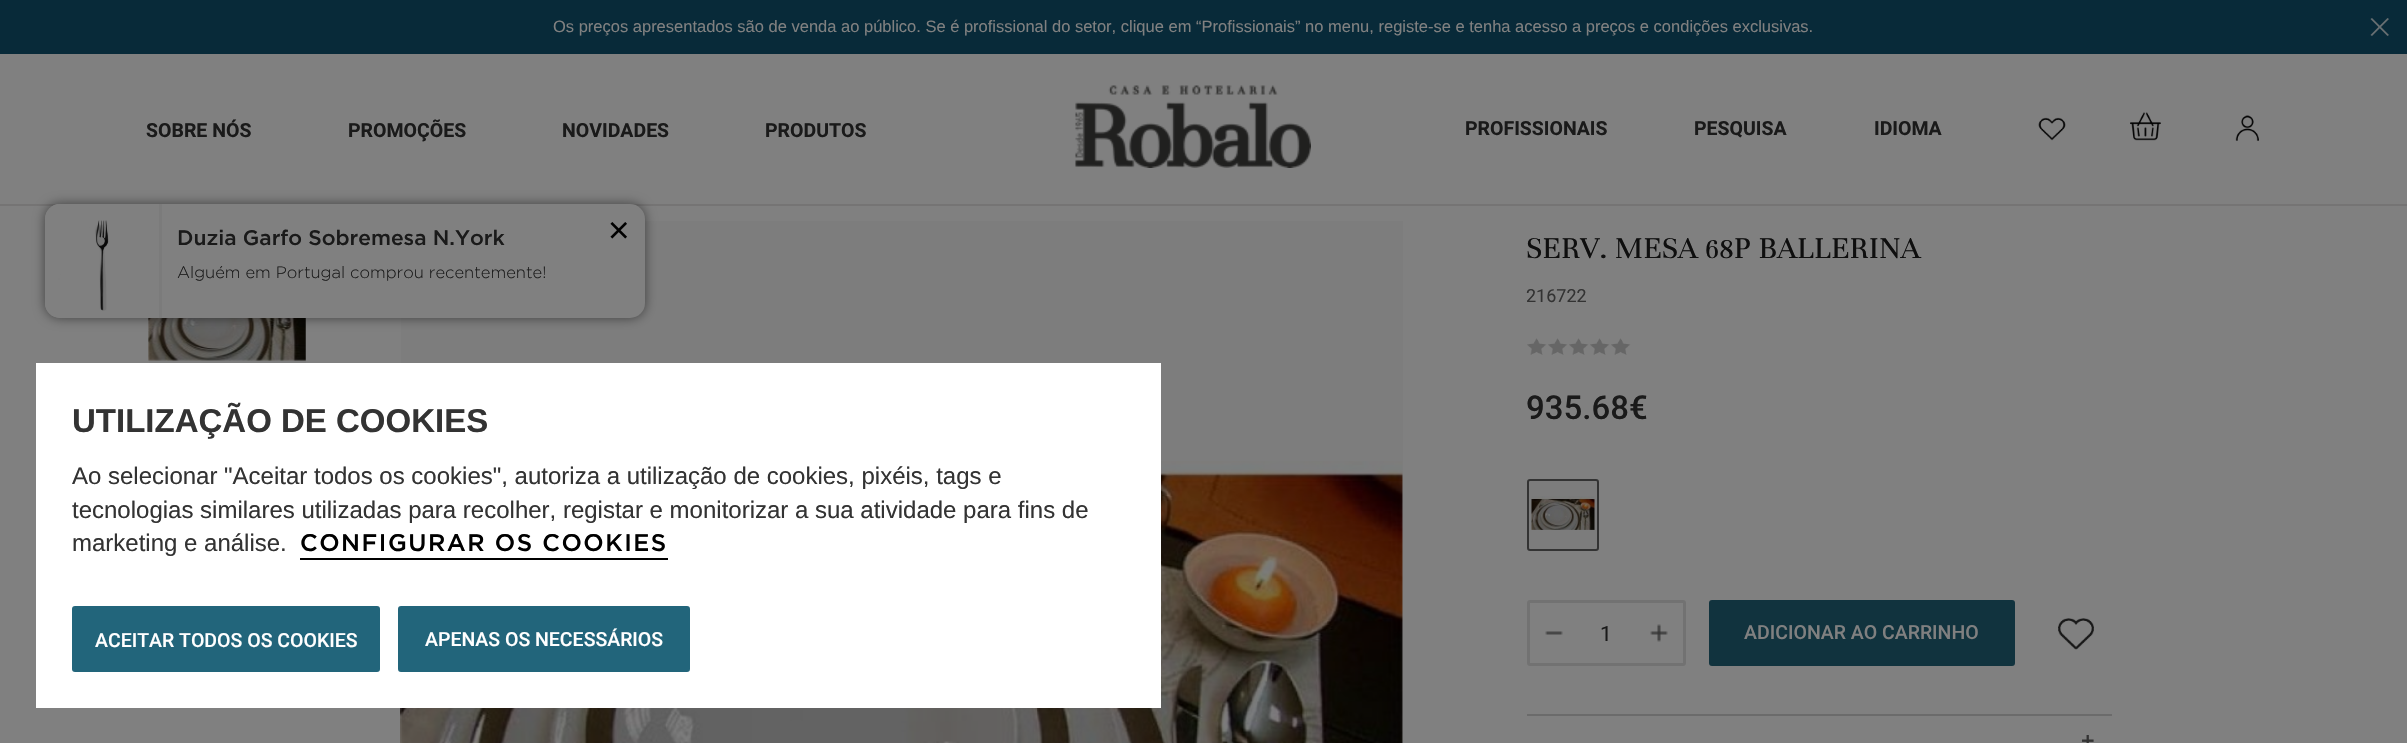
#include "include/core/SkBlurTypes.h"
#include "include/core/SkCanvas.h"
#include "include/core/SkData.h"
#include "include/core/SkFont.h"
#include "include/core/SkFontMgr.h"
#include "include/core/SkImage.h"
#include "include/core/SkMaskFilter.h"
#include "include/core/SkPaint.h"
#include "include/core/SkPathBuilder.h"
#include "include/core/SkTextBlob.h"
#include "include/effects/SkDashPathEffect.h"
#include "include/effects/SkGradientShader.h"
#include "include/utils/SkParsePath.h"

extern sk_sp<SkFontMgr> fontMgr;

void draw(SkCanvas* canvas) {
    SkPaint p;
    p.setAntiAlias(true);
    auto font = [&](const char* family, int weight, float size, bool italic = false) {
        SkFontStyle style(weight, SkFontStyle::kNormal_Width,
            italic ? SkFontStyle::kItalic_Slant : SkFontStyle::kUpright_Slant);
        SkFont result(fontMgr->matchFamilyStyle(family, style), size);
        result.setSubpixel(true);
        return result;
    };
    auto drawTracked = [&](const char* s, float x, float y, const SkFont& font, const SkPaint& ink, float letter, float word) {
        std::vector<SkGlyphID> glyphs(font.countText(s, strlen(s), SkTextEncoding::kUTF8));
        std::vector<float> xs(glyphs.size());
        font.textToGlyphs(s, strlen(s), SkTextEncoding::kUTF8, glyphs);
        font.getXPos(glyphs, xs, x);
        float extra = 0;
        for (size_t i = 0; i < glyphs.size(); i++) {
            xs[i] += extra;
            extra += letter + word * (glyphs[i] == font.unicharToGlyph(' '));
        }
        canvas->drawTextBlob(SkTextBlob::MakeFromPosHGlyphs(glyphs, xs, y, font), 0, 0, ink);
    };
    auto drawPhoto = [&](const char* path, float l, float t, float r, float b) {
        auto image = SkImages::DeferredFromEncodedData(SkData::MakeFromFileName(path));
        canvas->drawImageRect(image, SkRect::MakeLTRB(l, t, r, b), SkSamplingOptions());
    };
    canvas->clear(0xFF808080);
    {
        const struct { float l, t, r, b; SkColor color; } items[] = {
            {401, 221, 1403, 743, 0xFF7D7D7D},
            {149, 318, 306, 363, 0xFF7D7D7D},
            {0, 0, 2407, 54, 0xFF082A39},
        };
        for (auto [l, t, r, b, color] : items) {
            p.setColor(color);
            canvas->drawRect(SkRect::MakeLTRB(l, t, r, b), p);
        }
    }
    auto font1 = font("Liberation Sans", 400, 16.5f);
    p.setColor(0xFF808080);
    canvas->drawString("Os preços apresentados são de venda ao público. Se é profissional do setor, clique em “Profissionais” no menu, registe-se e tenha acesso a preços e condições exclusivas.", 553, 32, font1, p);
    p.setColor(0xFF686F72);
    canvas->drawPath(SkPathBuilder().moveTo(2387.5f, 18).lineTo(2389, 19).lineTo(2372, 36).lineTo(2370.5f, 35).close().detach(), p);
    canvas->drawPath(SkPathBuilder().moveTo(2370.5f, 19).lineTo(2372, 18).lineTo(2389, 35).lineTo(2387.5f, 36).close().detach(), p);
    p.setColor(0xFF757474);
    canvas->drawRect(SkRect::MakeLTRB(0, 204, 2407, 206), p);
    auto font2 = font("Roboto", 700, 19.5f);
    p.setColor(0xFF1A1A1A);
    {
        const struct { const char* s; float x, y; } items[] = {
            {"SOBRE NÓS", 146, 137},
            {"PROMOÇÕES", 348, 137},
            {"NOVIDADES", 562, 137},
            {"PRODUTOS", 765, 137},
        };
        for (auto [s, x, y] : items) {
            canvas->drawString(s, x, y, font2, p);
        }
    }
    drawPhoto("media/1.png", 1075, 85, 1311, 168);
    {
        const struct { const char* s; float x, y; } items[] = {
            {"PROFISSIONAIS", 1465, 135},
            {"PESQUISA", 1694, 135},
            {"IDIOMA", 1874, 135},
        };
        for (auto [s, x, y] : items) {
            canvas->drawString(s, x, y, font2, p);
        }
    }
    drawPhoto("media/2.png", 2038, 117, 2066, 141);
    drawPhoto("media/3.png", 2130, 112, 2161, 141);
    drawPhoto("media/4.png", 2235, 115, 2259, 141);
    drawPhoto("media/7.png", 148, 318, 306, 361);
    p.setColor(0x80000000);
    p.setMaskFilter(SkMaskFilter::MakeBlur(kNormal_SkBlurStyle, 6));
    canvas->drawRoundRect(SkRect::MakeLTRB(45, 204, 645, 318), 15, 15, p);
    p.setMaskFilter(nullptr);
    p.setColor(0xFF808080);
    canvas->drawRoundRect(SkRect::MakeLTRB(45, 204, 645, 318), 15, 15, p);
    p.setColor(0xFF7B7B7B);
    canvas->drawRect(SkRect::MakeLTRB(159, 204, 162, 318), p);
    drawPhoto("media/5.png", 45, 204, 109, 318);
    auto font3 = font("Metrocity", 500, 21);
    p.setColor(0xFF1A1A1A);
    canvas->drawString("Duzia Garfo Sobremesa N.York", 177, 245, font3, p);
    auto font4 = font("Metrocity", 300, 16.5f);
    canvas->drawString("Alguém em Portugal comprou recentemente!", 177, 278, font4, p);
    drawPhoto("media/6.png", 610, 222, 627, 239);
    drawPhoto("media/8.png", 400, 461, 1403, 743);
    auto font5 = font("Unna", 400, 33);
    p.setColor(0xFF0F0F0F);
    canvas->drawString("SERV. MESA 68P BALLERINA", 1526, 258, font5, p);
    auto font6 = font("Roboto", 400, 18);
    p.setColor(0xFF333333);
    canvas->drawString("216722", 1526, 302, font6, p);
    drawPhoto("media/9.png", 1527, 338, 1547, 355);
    drawPhoto("media/10.png", 1548, 338, 1568, 355);
    drawPhoto("media/10.png", 1569, 338, 1589, 355);
    drawPhoto("media/10.png", 1590, 338, 1610, 355);
    drawPhoto("media/10.png", 1611, 338, 1631, 355);
    auto font7 = font("Roboto", 500, 33);
    p.setColor(0xFF1A1A1A);
    canvas->drawString("935.68€", 1526, 419, font7, p);
    p.setStyle(SkPaint::kStroke_Style);
    p.setStrokeWidth(2);
    p.setColor(0xFF333333);
    canvas->drawRoundRect(SkRect::MakeLTRB(1528, 480, 1598, 550), 2, 2, p);
    drawPhoto("media/11.png", 1531, 496, 1595, 530);
    p.setStyle(SkPaint::kFill_Style);
    p.setColor(0x08000000);
    canvas->drawRect(SkRect::MakeLTRB(1529, 481, 1597, 549), p);
    p.setStyle(SkPaint::kStroke_Style);
    p.setStrokeWidth(3);
    p.setColor(0xFF727272);
    canvas->drawRoundRect(SkRect::MakeLTRB(1528.5f, 601.5f, 1684.5f, 664.5f), 1.5f, 1.5f, p);
    drawPhoto("media/12.png", 1545, 631, 1563, 635);
    auto font8 = font("Roboto", 400, 21);
    p.setStyle(SkPaint::kFill_Style);
    p.setColor(0xFF1A1A1A);
    canvas->drawString("1", 1600, 641, font8, p);
    drawPhoto("media/13.png", 1650, 624, 1668, 642);
    p.setColor(0xFF11333E);
    canvas->drawRoundRect(SkRect::MakeLTRB(1709, 600, 2015, 666), 3, 3, p);
    auto font9 = font("Roboto", 500, 19.5f);
    p.setColor(0xFF808080);
    canvas->drawString("ADICIONAR AO CARRINHO", 1744, 639, font9, p);
    drawPhoto("media/14.png", 2058, 618, 2094, 650);
    p.setColor(0xFF6B6B6B);
    canvas->drawRect(SkRect::MakeLTRB(1527, 714, 2112, 716), p);
    drawPhoto("media/15.png", 2082, 735, 2094, 743);
    p.setColor(0xFFFFFFFF);
    canvas->drawRect(SkRect::MakeLTRB(36, 363, 1161, 708), p);
    auto font10 = font("Liberation Sans", 700, 33);
    p.setColor(0xFF333333);
    canvas->drawString("UTILIZAÇÃO DE COOKIES", 72, 432, font10, p);
    auto font11 = font("Liberation Sans", 400, 24);
    {
        const struct { const char* s; float x, y; } items[] = {
            {"Ao selecionar \"Aceitar todos os cookies\", autoriza a utilização de cookies, pixéis, tags e", 72, 484},
            {"tecnologias similares utilizadas para recolher, registar e monitorizar a sua atividade para fins de", 72, 518},
            {"marketing e análise.", 72, 551},
        };
        for (auto [s, x, y] : items) {
            canvas->drawString(s, x, y, font11, p);
        }
    }
    p.setColor(0xFF000000);
    canvas->drawRect(SkRect::MakeLTRB(300, 558, 668, 560), p);
    auto font12 = font("Metrocity", 500, 24);
    drawTracked("CONFIGURAR OS COOKIES", 300, 551, font12, p, 1.5f, 0);
    p.setColor(0xFF22657B);
    canvas->drawRoundRect(SkRect::MakeLTRB(72, 606, 380, 672), 3, 3, p);
    p.setColor(0xFFFFFFFF);
    canvas->drawString("ACEITAR TODOS OS COOKIES", 95, 647, font9, p);
    p.setColor(0xFF22657B);
    canvas->drawRoundRect(SkRect::MakeLTRB(399, 607, 689, 671), 2, 2, p);
    p.setStyle(SkPaint::kStroke_Style);
    p.setStrokeWidth(2);
    canvas->drawRoundRect(SkRect::MakeLTRB(399, 607, 689, 671), 2, 2, p);
    p.setStyle(SkPaint::kFill_Style);
    p.setColor(0xFFFFFFFF);
    canvas->drawString("APENAS OS NECESSÁRIOS", 425, 646, font9, p);
}
